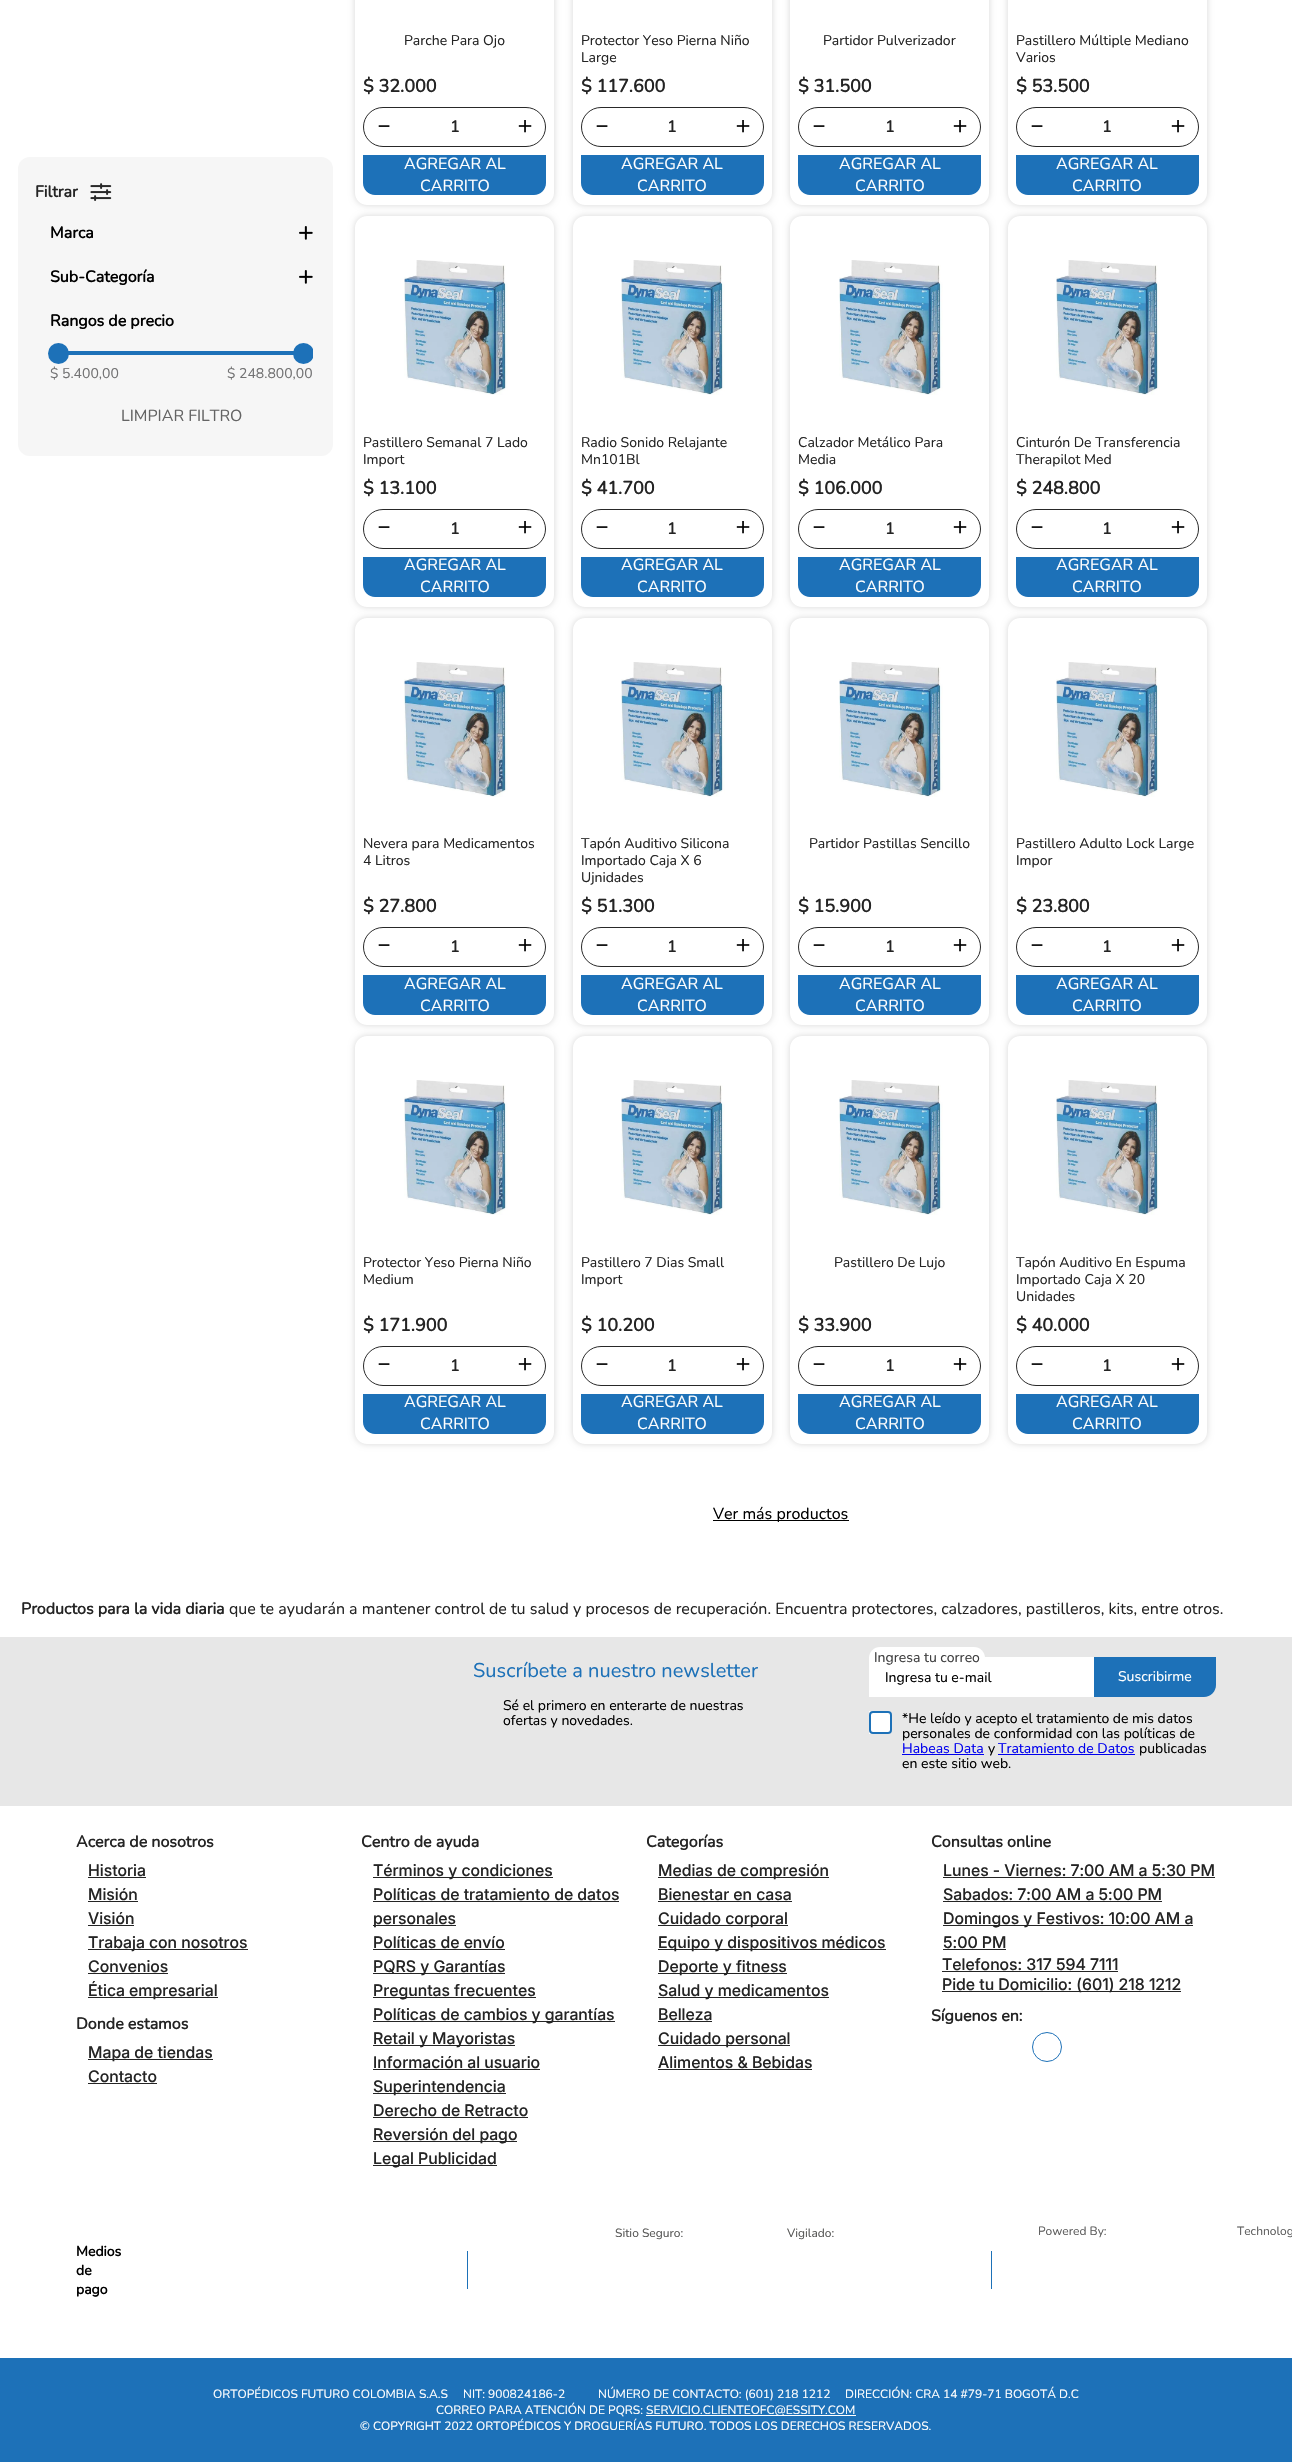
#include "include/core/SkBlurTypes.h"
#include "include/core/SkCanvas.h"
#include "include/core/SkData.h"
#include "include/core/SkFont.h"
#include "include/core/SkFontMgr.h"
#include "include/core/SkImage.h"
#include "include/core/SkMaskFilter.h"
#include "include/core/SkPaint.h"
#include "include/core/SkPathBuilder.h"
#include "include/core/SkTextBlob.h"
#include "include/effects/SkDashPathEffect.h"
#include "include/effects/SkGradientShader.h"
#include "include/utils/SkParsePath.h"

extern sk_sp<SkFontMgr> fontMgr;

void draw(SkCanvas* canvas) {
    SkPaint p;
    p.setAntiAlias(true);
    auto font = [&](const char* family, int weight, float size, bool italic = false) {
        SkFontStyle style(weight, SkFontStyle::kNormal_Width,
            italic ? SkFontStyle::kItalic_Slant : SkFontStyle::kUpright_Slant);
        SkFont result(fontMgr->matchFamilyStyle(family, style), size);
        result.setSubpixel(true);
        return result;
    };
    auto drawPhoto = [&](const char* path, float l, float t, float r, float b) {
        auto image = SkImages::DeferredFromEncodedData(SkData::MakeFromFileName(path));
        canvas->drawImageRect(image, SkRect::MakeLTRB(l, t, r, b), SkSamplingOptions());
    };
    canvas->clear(0xFFFFFFFF);
    p.setColor(0xFFF6F6F6);
    canvas->drawRoundRect(SkRect::MakeLTRB(18, 157, 333, 456), 12, 12, p);
    auto font1 = font("Nunito", 700, 16);
    p.setColor(0xFF242424);
    canvas->drawString("Filtrar", 35, 197, font1, p);
    drawPhoto("media/1.png", 90, 183, 112, 201);
    p.setColor(0xFF000000);
    canvas->drawString("Marca", 50, 238, font1, p);
    drawPhoto("media/2.png", 299, 226, 313, 240);
    canvas->drawString("Sub-Categoría", 50, 282, font1, p);
    drawPhoto("media/2.png", 299, 270, 313, 284);
    canvas->drawString("Rangos de precio", 50, 326, font1, p);
    p.setColor(0xFF1D71B8);
    canvas->drawRect(SkRect::MakeLTRB(68, 351, 294, 355), p);
    canvas->drawCircle(58.5f, 353.5f, 10.5f, p);
    canvas->save();
    canvas->clipRect(SkRect::MakeLTRB(35, 213, 313, 436));
    canvas->drawCircle(303.5f, 353.5f, 10.5f, p);
    canvas->restore();
    auto font2 = font("Nunito", 400, 14);
    p.setColor(0xFF727273);
    canvas->drawString("$ 5.400,00", 50, 378, font2, p);
    canvas->drawString("$ 248.800,00", 227, 378, font2, p);
    auto font3 = font("Nunito", 400, 16);
    p.setColor(0xFF646464);
    canvas->drawString("LIMPIAR FILTRO", 121, 421, font3, p);
    canvas->save();
    canvas->clipPath(SkPathBuilder(SkPathFillType::kEvenOdd).moveTo(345, 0).lineTo(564, 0).lineTo(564, 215).lineTo(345, 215).close().moveTo(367, -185).lineTo(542, -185).cubicTo(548.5f, -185, 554, -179.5f, 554, -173).lineTo(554, 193).cubicTo(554, 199.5f, 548.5f, 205, 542, 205).lineTo(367, 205).cubicTo(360.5f, 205, 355, 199.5f, 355, 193).lineTo(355, -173).cubicTo(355, -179.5f, 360.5f, -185, 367, -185).close().detach(), true);
    p.setColor(0x29000000);
    p.setMaskFilter(SkMaskFilter::MakeBlur(kNormal_SkBlurStyle, 3));
    canvas->drawRoundRect(SkRect::MakeLTRB(355, -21, 554, 205), 12, 12, p);
    p.setMaskFilter(nullptr);
    canvas->restore();
    p.setColor(0xFF242424);
    canvas->drawString("Parche Para Ojo", 404, 45, font2, p);
    auto font4 = font("Nunito", 700, 18);
    canvas->drawString("$ 32.000", 363, 92, font4, p);
    p.setStyle(SkPaint::kStroke_Style);
    p.setStrokeWidth(1);
    p.setColor(0xFF292929);
    canvas->drawRoundRect(SkRect::MakeLTRB(363.5f, 107.5f, 545.5f, 146.5f), 19.5f, 19.5f, p);
    auto font5 = font("WenQuanYi Zen Hei", 500, 24);
    p.setStyle(SkPaint::kFill_Style);
    p.setColor(0xFF000000);
    canvas->drawString("－", 372, 133, font5, p);
    p.setColor(0xFF242424);
    canvas->drawString("1", 450, 132, font1, p);
    p.setColor(0xFF000000);
    canvas->drawString("＋", 513, 133, font5, p);
    p.setColor(0xFF1D71B8);
    canvas->drawPath(SkPathBuilder().moveTo(363, 155).lineTo(546, 155).lineTo(546, 183).cubicTo(546, 189.5f, 540.5f, 195, 534, 195).lineTo(375, 195).cubicTo(368.5f, 195, 363, 189.5f, 363, 183).close().detach(), p);
    p.setColor(0xFFFFFFFF);
    canvas->drawString("AGREGAR AL", 404, 169, font3, p);
    canvas->drawString("CARRITO", 420, 191, font3, p);
    canvas->save();
    canvas->clipPath(SkPathBuilder(SkPathFillType::kEvenOdd).moveTo(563, 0).lineTo(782, 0).lineTo(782, 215).lineTo(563, 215).close().moveTo(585, -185).lineTo(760, -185).cubicTo(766.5f, -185, 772, -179.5f, 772, -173).lineTo(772, 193).cubicTo(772, 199.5f, 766.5f, 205, 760, 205).lineTo(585, 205).cubicTo(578.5f, 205, 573, 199.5f, 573, 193).lineTo(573, -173).cubicTo(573, -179.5f, 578.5f, -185, 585, -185).close().detach(), true);
    p.setColor(0x29000000);
    p.setMaskFilter(SkMaskFilter::MakeBlur(kNormal_SkBlurStyle, 3));
    canvas->drawRoundRect(SkRect::MakeLTRB(573, -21, 772, 205), 12, 12, p);
    p.setMaskFilter(nullptr);
    canvas->restore();
    p.setColor(0xFF242424);
    canvas->drawString("Protector Yeso Pierna Niño", 581, 45, font2, p);
    canvas->drawString("Large", 581, 62, font2, p);
    canvas->drawString("$ 117.600", 581, 92, font4, p);
    p.setStyle(SkPaint::kStroke_Style);
    p.setColor(0xFF292929);
    canvas->drawRoundRect(SkRect::MakeLTRB(581.5f, 107.5f, 763.5f, 146.5f), 19.5f, 19.5f, p);
    p.setStyle(SkPaint::kFill_Style);
    p.setColor(0xFF000000);
    canvas->drawString("－", 590, 133, font5, p);
    p.setColor(0xFF242424);
    canvas->drawString("1", 667, 132, font1, p);
    p.setColor(0xFF000000);
    canvas->drawString("＋", 731, 133, font5, p);
    p.setColor(0xFF1D71B8);
    canvas->drawPath(SkPathBuilder().moveTo(581, 155).lineTo(764, 155).lineTo(764, 183).cubicTo(764, 189.5f, 758.5f, 195, 752, 195).lineTo(593, 195).cubicTo(586.5f, 195, 581, 189.5f, 581, 183).close().detach(), p);
    p.setColor(0xFFFFFFFF);
    canvas->drawString("AGREGAR AL", 621, 169, font3, p);
    canvas->drawString("CARRITO", 637, 191, font3, p);
    canvas->save();
    canvas->clipPath(SkPathBuilder(SkPathFillType::kEvenOdd).moveTo(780, 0).lineTo(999, 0).lineTo(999, 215).lineTo(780, 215).close().moveTo(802, -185).lineTo(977, -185).cubicTo(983.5f, -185, 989, -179.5f, 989, -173).lineTo(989, 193).cubicTo(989, 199.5f, 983.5f, 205, 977, 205).lineTo(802, 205).cubicTo(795.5f, 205, 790, 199.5f, 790, 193).lineTo(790, -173).cubicTo(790, -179.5f, 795.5f, -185, 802, -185).close().detach(), true);
    p.setColor(0x29000000);
    p.setMaskFilter(SkMaskFilter::MakeBlur(kNormal_SkBlurStyle, 3));
    canvas->drawRoundRect(SkRect::MakeLTRB(790, -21, 989, 205), 12, 12, p);
    p.setMaskFilter(nullptr);
    canvas->restore();
    p.setColor(0xFF242424);
    canvas->drawString("Partidor Pulverizador", 823, 45, font2, p);
    canvas->drawString("$ 31.500", 798, 92, font4, p);
    p.setStyle(SkPaint::kStroke_Style);
    p.setColor(0xFF292929);
    canvas->drawRoundRect(SkRect::MakeLTRB(798.5f, 107.5f, 980.5f, 146.5f), 19.5f, 19.5f, p);
    p.setStyle(SkPaint::kFill_Style);
    p.setColor(0xFF000000);
    canvas->drawString("－", 807, 133, font5, p);
    p.setColor(0xFF242424);
    canvas->drawString("1", 885, 132, font1, p);
    p.setColor(0xFF000000);
    canvas->drawString("＋", 948, 133, font5, p);
    p.setColor(0xFF1D71B8);
    canvas->drawPath(SkPathBuilder().moveTo(798, 155).lineTo(981, 155).lineTo(981, 183).cubicTo(981, 189.5f, 975.5f, 195, 969, 195).lineTo(810, 195).cubicTo(803.5f, 195, 798, 189.5f, 798, 183).close().detach(), p);
    p.setColor(0xFFFFFFFF);
    canvas->drawString("AGREGAR AL", 839, 169, font3, p);
    canvas->drawString("CARRITO", 855, 191, font3, p);
    canvas->save();
    canvas->clipPath(SkPathBuilder(SkPathFillType::kEvenOdd).moveTo(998, 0).lineTo(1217, 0).lineTo(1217, 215).lineTo(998, 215).close().moveTo(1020, -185).lineTo(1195, -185).cubicTo(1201.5f, -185, 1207, -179.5f, 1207, -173).lineTo(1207, 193).cubicTo(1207, 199.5f, 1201.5f, 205, 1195, 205).lineTo(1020, 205).cubicTo(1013.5f, 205, 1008, 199.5f, 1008, 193).lineTo(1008, -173).cubicTo(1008, -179.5f, 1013.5f, -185, 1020, -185).close().detach(), true);
    p.setColor(0x29000000);
    p.setMaskFilter(SkMaskFilter::MakeBlur(kNormal_SkBlurStyle, 3));
    canvas->drawRoundRect(SkRect::MakeLTRB(1008, -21, 1207, 205), 12, 12, p);
    p.setMaskFilter(nullptr);
    canvas->restore();
    p.setColor(0xFF242424);
    canvas->drawString("Pastillero Múltiple Mediano", 1016, 45, font2, p);
    canvas->drawString("Varios", 1016, 62, font2, p);
    canvas->drawString("$ 53.500", 1016, 92, font4, p);
    p.setStyle(SkPaint::kStroke_Style);
    p.setColor(0xFF292929);
    canvas->drawRoundRect(SkRect::MakeLTRB(1016.5f, 107.5f, 1198.5f, 146.5f), 19.5f, 19.5f, p);
    p.setStyle(SkPaint::kFill_Style);
    p.setColor(0xFF000000);
    canvas->drawString("－", 1025, 133, font5, p);
    p.setColor(0xFF242424);
    canvas->drawString("1", 1102, 132, font1, p);
    p.setColor(0xFF000000);
    canvas->drawString("＋", 1166, 133, font5, p);
    p.setColor(0xFF1D71B8);
    canvas->drawPath(SkPathBuilder().moveTo(1016, 155).lineTo(1199, 155).lineTo(1199, 183).cubicTo(1199, 189.5f, 1193.5f, 195, 1187, 195).lineTo(1028, 195).cubicTo(1021.5f, 195, 1016, 189.5f, 1016, 183).close().detach(), p);
    p.setColor(0xFFFFFFFF);
    canvas->drawString("AGREGAR AL", 1056, 169, font3, p);
    canvas->drawString("CARRITO", 1072, 191, font3, p);
    canvas->save();
    canvas->clipPath(SkPathBuilder(SkPathFillType::kEvenOdd).moveTo(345, 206).lineTo(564, 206).lineTo(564, 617).lineTo(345, 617).close().moveTo(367, 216).lineTo(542, 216).cubicTo(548.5f, 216, 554, 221.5f, 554, 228).lineTo(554, 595).cubicTo(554, 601.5f, 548.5f, 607, 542, 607).lineTo(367, 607).cubicTo(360.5f, 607, 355, 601.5f, 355, 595).lineTo(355, 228).cubicTo(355, 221.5f, 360.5f, 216, 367, 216).close().detach(), true);
    p.setColor(0x29000000);
    p.setMaskFilter(SkMaskFilter::MakeBlur(kNormal_SkBlurStyle, 3));
    canvas->drawRoundRect(SkRect::MakeLTRB(355, 216, 554, 607), 12, 12, p);
    p.setMaskFilter(nullptr);
    canvas->restore();
    drawPhoto("media/3.png", 404, 260, 508, 395);
    p.setColor(0xFF242424);
    canvas->drawString("Pastillero Semanal 7 Lado", 363, 447, font2, p);
    canvas->drawString("Import", 363, 464, font2, p);
    canvas->drawString("$ 13.100", 363, 494, font4, p);
    p.setStyle(SkPaint::kStroke_Style);
    p.setColor(0xFF292929);
    canvas->drawRoundRect(SkRect::MakeLTRB(363.5f, 509.5f, 545.5f, 548.5f), 19.5f, 19.5f, p);
    p.setStyle(SkPaint::kFill_Style);
    p.setColor(0xFF000000);
    canvas->drawString("－", 372, 534, font5, p);
    p.setColor(0xFF242424);
    canvas->drawString("1", 450, 534, font1, p);
    p.setColor(0xFF000000);
    canvas->drawString("＋", 513, 534, font5, p);
    p.setColor(0xFF1D71B8);
    canvas->drawPath(SkPathBuilder().moveTo(363, 557).lineTo(546, 557).lineTo(546, 585).cubicTo(546, 591.5f, 540.5f, 597, 534, 597).lineTo(375, 597).cubicTo(368.5f, 597, 363, 591.5f, 363, 585).close().detach(), p);
    p.setColor(0xFFFFFFFF);
    canvas->drawString("AGREGAR AL", 404, 570, font3, p);
    canvas->drawString("CARRITO", 420, 592, font3, p);
    canvas->save();
    canvas->clipPath(SkPathBuilder(SkPathFillType::kEvenOdd).moveTo(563, 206).lineTo(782, 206).lineTo(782, 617).lineTo(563, 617).close().moveTo(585, 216).lineTo(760, 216).cubicTo(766.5f, 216, 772, 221.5f, 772, 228).lineTo(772, 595).cubicTo(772, 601.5f, 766.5f, 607, 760, 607).lineTo(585, 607).cubicTo(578.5f, 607, 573, 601.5f, 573, 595).lineTo(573, 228).cubicTo(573, 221.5f, 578.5f, 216, 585, 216).close().detach(), true);
    p.setColor(0x29000000);
    p.setMaskFilter(SkMaskFilter::MakeBlur(kNormal_SkBlurStyle, 3));
    canvas->drawRoundRect(SkRect::MakeLTRB(573, 216, 772, 607), 12, 12, p);
    p.setMaskFilter(nullptr);
    canvas->restore();
    drawPhoto("media/4.png", 621, 260, 725, 395);
    p.setColor(0xFF242424);
    canvas->drawString("Radio Sonido Relajante", 581, 447, font2, p);
    canvas->drawString("Mn101Bl", 581, 464, font2, p);
    canvas->drawString("$ 41.700", 581, 494, font4, p);
    p.setStyle(SkPaint::kStroke_Style);
    p.setColor(0xFF292929);
    canvas->drawRoundRect(SkRect::MakeLTRB(581.5f, 509.5f, 763.5f, 548.5f), 19.5f, 19.5f, p);
    p.setStyle(SkPaint::kFill_Style);
    p.setColor(0xFF000000);
    canvas->drawString("－", 590, 534, font5, p);
    p.setColor(0xFF242424);
    canvas->drawString("1", 667, 534, font1, p);
    p.setColor(0xFF000000);
    canvas->drawString("＋", 731, 534, font5, p);
    p.setColor(0xFF1D71B8);
    canvas->drawPath(SkPathBuilder().moveTo(581, 557).lineTo(764, 557).lineTo(764, 585).cubicTo(764, 591.5f, 758.5f, 597, 752, 597).lineTo(593, 597).cubicTo(586.5f, 597, 581, 591.5f, 581, 585).close().detach(), p);
    p.setColor(0xFFFFFFFF);
    canvas->drawString("AGREGAR AL", 621, 570, font3, p);
    canvas->drawString("CARRITO", 637, 592, font3, p);
    canvas->save();
    canvas->clipPath(SkPathBuilder(SkPathFillType::kEvenOdd).moveTo(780, 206).lineTo(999, 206).lineTo(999, 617).lineTo(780, 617).close().moveTo(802, 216).lineTo(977, 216).cubicTo(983.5f, 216, 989, 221.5f, 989, 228).lineTo(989, 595).cubicTo(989, 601.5f, 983.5f, 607, 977, 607).lineTo(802, 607).cubicTo(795.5f, 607, 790, 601.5f, 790, 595).lineTo(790, 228).cubicTo(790, 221.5f, 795.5f, 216, 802, 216).close().detach(), true);
    p.setColor(0x29000000);
    p.setMaskFilter(SkMaskFilter::MakeBlur(kNormal_SkBlurStyle, 3));
    canvas->drawRoundRect(SkRect::MakeLTRB(790, 216, 989, 607), 12, 12, p);
    p.setMaskFilter(nullptr);
    canvas->restore();
    drawPhoto("media/5.png", 839, 260, 943, 395);
    p.setColor(0xFF242424);
    canvas->drawString("Calzador Metálico Para", 798, 447, font2, p);
    canvas->drawString("Media", 798, 464, font2, p);
    canvas->drawString("$ 106.000", 798, 494, font4, p);
    p.setStyle(SkPaint::kStroke_Style);
    p.setColor(0xFF292929);
    canvas->drawRoundRect(SkRect::MakeLTRB(798.5f, 509.5f, 980.5f, 548.5f), 19.5f, 19.5f, p);
    p.setStyle(SkPaint::kFill_Style);
    p.setColor(0xFF000000);
    canvas->drawString("－", 807, 534, font5, p);
    p.setColor(0xFF242424);
    canvas->drawString("1", 885, 534, font1, p);
    p.setColor(0xFF000000);
    canvas->drawString("＋", 948, 534, font5, p);
    p.setColor(0xFF1D71B8);
    canvas->drawPath(SkPathBuilder().moveTo(798, 557).lineTo(981, 557).lineTo(981, 585).cubicTo(981, 591.5f, 975.5f, 597, 969, 597).lineTo(810, 597).cubicTo(803.5f, 597, 798, 591.5f, 798, 585).close().detach(), p);
    p.setColor(0xFFFFFFFF);
    canvas->drawString("AGREGAR AL", 839, 570, font3, p);
    canvas->drawString("CARRITO", 855, 592, font3, p);
    canvas->save();
    canvas->clipPath(SkPathBuilder(SkPathFillType::kEvenOdd).moveTo(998, 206).lineTo(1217, 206).lineTo(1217, 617).lineTo(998, 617).close().moveTo(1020, 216).lineTo(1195, 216).cubicTo(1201.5f, 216, 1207, 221.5f, 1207, 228).lineTo(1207, 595).cubicTo(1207, 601.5f, 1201.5f, 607, 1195, 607).lineTo(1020, 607).cubicTo(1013.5f, 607, 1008, 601.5f, 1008, 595).lineTo(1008, 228).cubicTo(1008, 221.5f, 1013.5f, 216, 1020, 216).close().detach(), true);
    p.setColor(0x29000000);
    p.setMaskFilter(SkMaskFilter::MakeBlur(kNormal_SkBlurStyle, 3));
    canvas->drawRoundRect(SkRect::MakeLTRB(1008, 216, 1207, 607), 12, 12, p);
    p.setMaskFilter(nullptr);
    canvas->restore();
    drawPhoto("media/4.png", 1056, 260, 1160, 395);
    p.setColor(0xFF242424);
    canvas->drawString("Cinturón De Transferencia", 1016, 447, font2, p);
    canvas->drawString("Therapilot Med", 1016, 464, font2, p);
    canvas->drawString("$ 248.800", 1016, 494, font4, p);
    p.setStyle(SkPaint::kStroke_Style);
    p.setColor(0xFF292929);
    canvas->drawRoundRect(SkRect::MakeLTRB(1016.5f, 509.5f, 1198.5f, 548.5f), 19.5f, 19.5f, p);
    p.setStyle(SkPaint::kFill_Style);
    p.setColor(0xFF000000);
    canvas->drawString("－", 1025, 534, font5, p);
    p.setColor(0xFF242424);
    canvas->drawString("1", 1102, 534, font1, p);
    p.setColor(0xFF000000);
    canvas->drawString("＋", 1166, 534, font5, p);
    p.setColor(0xFF1D71B8);
    canvas->drawPath(SkPathBuilder().moveTo(1016, 557).lineTo(1199, 557).lineTo(1199, 585).cubicTo(1199, 591.5f, 1193.5f, 597, 1187, 597).lineTo(1028, 597).cubicTo(1021.5f, 597, 1016, 591.5f, 1016, 585).close().detach(), p);
    p.setColor(0xFFFFFFFF);
    canvas->drawString("AGREGAR AL", 1056, 570, font3, p);
    canvas->drawString("CARRITO", 1072, 592, font3, p);
    canvas->save();
    canvas->clipPath(SkPathBuilder(SkPathFillType::kEvenOdd).moveTo(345, 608).lineTo(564, 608).lineTo(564, 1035).lineTo(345, 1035).close().moveTo(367, 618).lineTo(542, 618).cubicTo(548.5f, 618, 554, 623.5f, 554, 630).lineTo(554, 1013).cubicTo(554, 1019.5f, 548.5f, 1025, 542, 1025).lineTo(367, 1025).cubicTo(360.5f, 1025, 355, 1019.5f, 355, 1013).lineTo(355, 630).cubicTo(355, 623.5f, 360.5f, 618, 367, 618).close().detach(), true);
    p.setColor(0x29000000);
    p.setMaskFilter(SkMaskFilter::MakeBlur(kNormal_SkBlurStyle, 3));
    canvas->drawRoundRect(SkRect::MakeLTRB(355, 618, 554, 1025), 12, 12, p);
    p.setMaskFilter(nullptr);
    canvas->restore();
    drawPhoto("media/6.png", 404, 662, 508, 797);
    p.setColor(0xFF242424);
    canvas->drawString("Nevera para Medicamentos", 363, 848, font2, p);
    canvas->drawString("4 Litros", 363, 865, font2, p);
    canvas->drawString("$ 27.800", 363, 912, font4, p);
    p.setStyle(SkPaint::kStroke_Style);
    p.setColor(0xFF292929);
    canvas->drawRoundRect(SkRect::MakeLTRB(363.5f, 927.5f, 545.5f, 966.5f), 19.5f, 19.5f, p);
    p.setStyle(SkPaint::kFill_Style);
    p.setColor(0xFF000000);
    canvas->drawString("－", 372, 952, font5, p);
    p.setColor(0xFF242424);
    canvas->drawString("1", 450, 952, font1, p);
    p.setColor(0xFF000000);
    canvas->drawString("＋", 513, 952, font5, p);
    p.setColor(0xFF1D71B8);
    canvas->drawPath(SkPathBuilder().moveTo(363, 975).lineTo(546, 975).lineTo(546, 1003).cubicTo(546, 1009.5f, 540.5f, 1015, 534, 1015).lineTo(375, 1015).cubicTo(368.5f, 1015, 363, 1009.5f, 363, 1003).close().detach(), p);
    p.setColor(0xFFFFFFFF);
    canvas->drawString("AGREGAR AL", 404, 989, font3, p);
    canvas->drawString("CARRITO", 420, 1011, font3, p);
    canvas->save();
    canvas->clipPath(SkPathBuilder(SkPathFillType::kEvenOdd).moveTo(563, 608).lineTo(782, 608).lineTo(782, 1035).lineTo(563, 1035).close().moveTo(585, 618).lineTo(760, 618).cubicTo(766.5f, 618, 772, 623.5f, 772, 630).lineTo(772, 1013).cubicTo(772, 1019.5f, 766.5f, 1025, 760, 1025).lineTo(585, 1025).cubicTo(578.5f, 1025, 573, 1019.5f, 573, 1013).lineTo(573, 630).cubicTo(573, 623.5f, 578.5f, 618, 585, 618).close().detach(), true);
    p.setColor(0x29000000);
    p.setMaskFilter(SkMaskFilter::MakeBlur(kNormal_SkBlurStyle, 3));
    canvas->drawRoundRect(SkRect::MakeLTRB(573, 618, 772, 1025), 12, 12, p);
    p.setMaskFilter(nullptr);
    canvas->restore();
    drawPhoto("media/7.png", 621, 662, 725, 797);
    p.setColor(0xFF242424);
    {
        const struct { const char* s; float x, y; } items[] = {
            {"Tapón Auditivo Silicona", 581, 848},
            {"Importado Caja X 6", 581, 865},
            {"Ujnidades", 581, 882},
        };
        for (auto [s, x, y] : items) {
            canvas->drawString(s, x, y, font2, p);
        }
    }
    canvas->drawString("$ 51.300", 581, 912, font4, p);
    p.setStyle(SkPaint::kStroke_Style);
    p.setColor(0xFF292929);
    canvas->drawRoundRect(SkRect::MakeLTRB(581.5f, 927.5f, 763.5f, 966.5f), 19.5f, 19.5f, p);
    p.setStyle(SkPaint::kFill_Style);
    p.setColor(0xFF000000);
    canvas->drawString("－", 590, 952, font5, p);
    p.setColor(0xFF242424);
    canvas->drawString("1", 667, 952, font1, p);
    p.setColor(0xFF000000);
    canvas->drawString("＋", 731, 952, font5, p);
    p.setColor(0xFF1D71B8);
    canvas->drawPath(SkPathBuilder().moveTo(581, 975).lineTo(764, 975).lineTo(764, 1003).cubicTo(764, 1009.5f, 758.5f, 1015, 752, 1015).lineTo(593, 1015).cubicTo(586.5f, 1015, 581, 1009.5f, 581, 1003).close().detach(), p);
    p.setColor(0xFFFFFFFF);
    canvas->drawString("AGREGAR AL", 621, 989, font3, p);
    canvas->drawString("CARRITO", 637, 1011, font3, p);
    canvas->save();
    canvas->clipPath(SkPathBuilder(SkPathFillType::kEvenOdd).moveTo(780, 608).lineTo(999, 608).lineTo(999, 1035).lineTo(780, 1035).close().moveTo(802, 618).lineTo(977, 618).cubicTo(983.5f, 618, 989, 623.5f, 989, 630).lineTo(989, 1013).cubicTo(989, 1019.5f, 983.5f, 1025, 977, 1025).lineTo(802, 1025).cubicTo(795.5f, 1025, 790, 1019.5f, 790, 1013).lineTo(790, 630).cubicTo(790, 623.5f, 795.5f, 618, 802, 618).close().detach(), true);
    p.setColor(0x29000000);
    p.setMaskFilter(SkMaskFilter::MakeBlur(kNormal_SkBlurStyle, 3));
    canvas->drawRoundRect(SkRect::MakeLTRB(790, 618, 989, 1025), 12, 12, p);
    p.setMaskFilter(nullptr);
    canvas->restore();
    drawPhoto("media/8.png", 839, 662, 943, 797);
    p.setColor(0xFF242424);
    canvas->drawString("Partidor Pastillas Sencillo", 809, 848, font2, p);
    canvas->drawString("$ 15.900", 798, 912, font4, p);
    p.setStyle(SkPaint::kStroke_Style);
    p.setColor(0xFF292929);
    canvas->drawRoundRect(SkRect::MakeLTRB(798.5f, 927.5f, 980.5f, 966.5f), 19.5f, 19.5f, p);
    p.setStyle(SkPaint::kFill_Style);
    p.setColor(0xFF000000);
    canvas->drawString("－", 807, 952, font5, p);
    p.setColor(0xFF242424);
    canvas->drawString("1", 885, 952, font1, p);
    p.setColor(0xFF000000);
    canvas->drawString("＋", 948, 952, font5, p);
    p.setColor(0xFF1D71B8);
    canvas->drawPath(SkPathBuilder().moveTo(798, 975).lineTo(981, 975).lineTo(981, 1003).cubicTo(981, 1009.5f, 975.5f, 1015, 969, 1015).lineTo(810, 1015).cubicTo(803.5f, 1015, 798, 1009.5f, 798, 1003).close().detach(), p);
    p.setColor(0xFFFFFFFF);
    canvas->drawString("AGREGAR AL", 839, 989, font3, p);
    canvas->drawString("CARRITO", 855, 1011, font3, p);
    canvas->save();
    canvas->clipPath(SkPathBuilder(SkPathFillType::kEvenOdd).moveTo(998, 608).lineTo(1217, 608).lineTo(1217, 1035).lineTo(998, 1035).close().moveTo(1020, 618).lineTo(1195, 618).cubicTo(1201.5f, 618, 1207, 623.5f, 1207, 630).lineTo(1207, 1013).cubicTo(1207, 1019.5f, 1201.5f, 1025, 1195, 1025).lineTo(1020, 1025).cubicTo(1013.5f, 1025, 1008, 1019.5f, 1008, 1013).lineTo(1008, 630).cubicTo(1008, 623.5f, 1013.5f, 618, 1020, 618).close().detach(), true);
    p.setColor(0x29000000);
    p.setMaskFilter(SkMaskFilter::MakeBlur(kNormal_SkBlurStyle, 3));
    canvas->drawRoundRect(SkRect::MakeLTRB(1008, 618, 1207, 1025), 12, 12, p);
    p.setMaskFilter(nullptr);
    canvas->restore();
    drawPhoto("media/7.png", 1056, 662, 1160, 797);
    p.setColor(0xFF242424);
    canvas->drawString("Pastillero Adulto Lock Large", 1016, 848, font2, p);
    canvas->drawString("Impor", 1016, 865, font2, p);
    canvas->drawString("$ 23.800", 1016, 912, font4, p);
    p.setStyle(SkPaint::kStroke_Style);
    p.setColor(0xFF292929);
    canvas->drawRoundRect(SkRect::MakeLTRB(1016.5f, 927.5f, 1198.5f, 966.5f), 19.5f, 19.5f, p);
    p.setStyle(SkPaint::kFill_Style);
    p.setColor(0xFF000000);
    canvas->drawString("－", 1025, 952, font5, p);
    p.setColor(0xFF242424);
    canvas->drawString("1", 1102, 952, font1, p);
    p.setColor(0xFF000000);
    canvas->drawString("＋", 1166, 952, font5, p);
    p.setColor(0xFF1D71B8);
    canvas->drawPath(SkPathBuilder().moveTo(1016, 975).lineTo(1199, 975).lineTo(1199, 1003).cubicTo(1199, 1009.5f, 1193.5f, 1015, 1187, 1015).lineTo(1028, 1015).cubicTo(1021.5f, 1015, 1016, 1009.5f, 1016, 1003).close().detach(), p);
    p.setColor(0xFFFFFFFF);
    canvas->drawString("AGREGAR AL", 1056, 989, font3, p);
    canvas->drawString("CARRITO", 1072, 1011, font3, p);
    canvas->save();
    canvas->clipPath(SkPathBuilder(SkPathFillType::kEvenOdd).moveTo(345, 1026).lineTo(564, 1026).lineTo(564, 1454).lineTo(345, 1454).close().moveTo(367, 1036).lineTo(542, 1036).cubicTo(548.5f, 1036, 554, 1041.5f, 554, 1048).lineTo(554, 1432).cubicTo(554, 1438.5f, 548.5f, 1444, 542, 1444).lineTo(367, 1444).cubicTo(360.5f, 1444, 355, 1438.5f, 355, 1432).lineTo(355, 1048).cubicTo(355, 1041.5f, 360.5f, 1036, 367, 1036).close().detach(), true);
    p.setColor(0x29000000);
    p.setMaskFilter(SkMaskFilter::MakeBlur(kNormal_SkBlurStyle, 3));
    canvas->drawRoundRect(SkRect::MakeLTRB(355, 1036, 554, 1444), 12, 12, p);
    p.setMaskFilter(nullptr);
    canvas->restore();
    drawPhoto("media/9.png", 404, 1080, 508, 1215);
    p.setColor(0xFF242424);
    canvas->drawString("Protector Yeso Pierna Niño", 363, 1267, font2, p);
    canvas->drawString("Medium", 363, 1284, font2, p);
    canvas->drawString("$ 171.900", 363, 1331, font4, p);
    p.setStyle(SkPaint::kStroke_Style);
    p.setColor(0xFF292929);
    canvas->drawRoundRect(SkRect::MakeLTRB(363.5f, 1346.5f, 545.5f, 1385.5f), 19.5f, 19.5f, p);
    p.setStyle(SkPaint::kFill_Style);
    p.setColor(0xFF000000);
    canvas->drawString("－", 372, 1371, font5, p);
    p.setColor(0xFF242424);
    canvas->drawString("1", 450, 1371, font1, p);
    p.setColor(0xFF000000);
    canvas->drawString("＋", 513, 1371, font5, p);
    p.setColor(0xFF1D71B8);
    canvas->drawPath(SkPathBuilder().moveTo(363, 1394).lineTo(546, 1394).lineTo(546, 1422).cubicTo(546, 1428.5f, 540.5f, 1434, 534, 1434).lineTo(375, 1434).cubicTo(368.5f, 1434, 363, 1428.5f, 363, 1422).close().detach(), p);
    p.setColor(0xFFFFFFFF);
    canvas->drawString("AGREGAR AL", 404, 1407, font3, p);
    canvas->drawString("CARRITO", 420, 1429, font3, p);
    canvas->save();
    canvas->clipPath(SkPathBuilder(SkPathFillType::kEvenOdd).moveTo(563, 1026).lineTo(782, 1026).lineTo(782, 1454).lineTo(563, 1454).close().moveTo(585, 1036).lineTo(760, 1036).cubicTo(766.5f, 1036, 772, 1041.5f, 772, 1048).lineTo(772, 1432).cubicTo(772, 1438.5f, 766.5f, 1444, 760, 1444).lineTo(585, 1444).cubicTo(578.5f, 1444, 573, 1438.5f, 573, 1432).lineTo(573, 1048).cubicTo(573, 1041.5f, 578.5f, 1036, 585, 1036).close().detach(), true);
    p.setColor(0x29000000);
    p.setMaskFilter(SkMaskFilter::MakeBlur(kNormal_SkBlurStyle, 3));
    canvas->drawRoundRect(SkRect::MakeLTRB(573, 1036, 772, 1444), 12, 12, p);
    p.setMaskFilter(nullptr);
    canvas->restore();
    drawPhoto("media/10.png", 621, 1080, 725, 1215);
    p.setColor(0xFF242424);
    canvas->drawString("Pastillero 7 Dias Small", 581, 1267, font2, p);
    canvas->drawString("Import", 581, 1284, font2, p);
    canvas->drawString("$ 10.200", 581, 1331, font4, p);
    p.setStyle(SkPaint::kStroke_Style);
    p.setColor(0xFF292929);
    canvas->drawRoundRect(SkRect::MakeLTRB(581.5f, 1346.5f, 763.5f, 1385.5f), 19.5f, 19.5f, p);
    p.setStyle(SkPaint::kFill_Style);
    p.setColor(0xFF000000);
    canvas->drawString("－", 590, 1371, font5, p);
    p.setColor(0xFF242424);
    canvas->drawString("1", 667, 1371, font1, p);
    p.setColor(0xFF000000);
    canvas->drawString("＋", 731, 1371, font5, p);
    p.setColor(0xFF1D71B8);
    canvas->drawPath(SkPathBuilder().moveTo(581, 1394).lineTo(764, 1394).lineTo(764, 1422).cubicTo(764, 1428.5f, 758.5f, 1434, 752, 1434).lineTo(593, 1434).cubicTo(586.5f, 1434, 581, 1428.5f, 581, 1422).close().detach(), p);
    p.setColor(0xFFFFFFFF);
    canvas->drawString("AGREGAR AL", 621, 1407, font3, p);
    canvas->drawString("CARRITO", 637, 1429, font3, p);
    canvas->save();
    canvas->clipPath(SkPathBuilder(SkPathFillType::kEvenOdd).moveTo(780, 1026).lineTo(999, 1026).lineTo(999, 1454).lineTo(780, 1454).close().moveTo(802, 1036).lineTo(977, 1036).cubicTo(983.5f, 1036, 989, 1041.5f, 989, 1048).lineTo(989, 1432).cubicTo(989, 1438.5f, 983.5f, 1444, 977, 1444).lineTo(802, 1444).cubicTo(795.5f, 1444, 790, 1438.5f, 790, 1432).lineTo(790, 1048).cubicTo(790, 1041.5f, 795.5f, 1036, 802, 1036).close().detach(), true);
    p.setColor(0x29000000);
    p.setMaskFilter(SkMaskFilter::MakeBlur(kNormal_SkBlurStyle, 3));
    canvas->drawRoundRect(SkRect::MakeLTRB(790, 1036, 989, 1444), 12, 12, p);
    p.setMaskFilter(nullptr);
    canvas->restore();
    drawPhoto("media/11.png", 839, 1080, 943, 1215);
    p.setColor(0xFF242424);
    canvas->drawString("Pastillero De Lujo", 834, 1267, font2, p);
    canvas->drawString("$ 33.900", 798, 1331, font4, p);
    p.setStyle(SkPaint::kStroke_Style);
    p.setColor(0xFF292929);
    canvas->drawRoundRect(SkRect::MakeLTRB(798.5f, 1346.5f, 980.5f, 1385.5f), 19.5f, 19.5f, p);
    p.setStyle(SkPaint::kFill_Style);
    p.setColor(0xFF000000);
    canvas->drawString("－", 807, 1371, font5, p);
    p.setColor(0xFF242424);
    canvas->drawString("1", 885, 1371, font1, p);
    p.setColor(0xFF000000);
    canvas->drawString("＋", 948, 1371, font5, p);
    p.setColor(0xFF1D71B8);
    canvas->drawPath(SkPathBuilder().moveTo(798, 1394).lineTo(981, 1394).lineTo(981, 1422).cubicTo(981, 1428.5f, 975.5f, 1434, 969, 1434).lineTo(810, 1434).cubicTo(803.5f, 1434, 798, 1428.5f, 798, 1422).close().detach(), p);
    p.setColor(0xFFFFFFFF);
    canvas->drawString("AGREGAR AL", 839, 1407, font3, p);
    canvas->drawString("CARRITO", 855, 1429, font3, p);
    canvas->save();
    canvas->clipPath(SkPathBuilder(SkPathFillType::kEvenOdd).moveTo(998, 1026).lineTo(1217, 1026).lineTo(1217, 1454).lineTo(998, 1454).close().moveTo(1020, 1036).lineTo(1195, 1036).cubicTo(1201.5f, 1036, 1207, 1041.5f, 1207, 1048).lineTo(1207, 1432).cubicTo(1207, 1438.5f, 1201.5f, 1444, 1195, 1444).lineTo(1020, 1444).cubicTo(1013.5f, 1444, 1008, 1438.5f, 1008, 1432).lineTo(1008, 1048).cubicTo(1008, 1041.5f, 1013.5f, 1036, 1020, 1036).close().detach(), true);
    p.setColor(0x29000000);
    p.setMaskFilter(SkMaskFilter::MakeBlur(kNormal_SkBlurStyle, 3));
    canvas->drawRoundRect(SkRect::MakeLTRB(1008, 1036, 1207, 1444), 12, 12, p);
    p.setMaskFilter(nullptr);
    canvas->restore();
    drawPhoto("media/10.png", 1056, 1080, 1160, 1215);
    p.setColor(0xFF242424);
    {
        const struct { const char* s; float x, y; } items[] = {
            {"Tapón Auditivo En Espuma", 1016, 1267},
            {"Importado Caja X 20", 1016, 1284},
            {"Unidades", 1016, 1301},
        };
        for (auto [s, x, y] : items) {
            canvas->drawString(s, x, y, font2, p);
        }
    }
    canvas->drawString("$ 40.000", 1016, 1331, font4, p);
    p.setStyle(SkPaint::kStroke_Style);
    p.setColor(0xFF292929);
    canvas->drawRoundRect(SkRect::MakeLTRB(1016.5f, 1346.5f, 1198.5f, 1385.5f), 19.5f, 19.5f, p);
    p.setStyle(SkPaint::kFill_Style);
    p.setColor(0xFF000000);
    canvas->drawString("－", 1025, 1371, font5, p);
    p.setColor(0xFF242424);
    canvas->drawString("1", 1102, 1371, font1, p);
    p.setColor(0xFF000000);
    canvas->drawString("＋", 1166, 1371, font5, p);
    p.setColor(0xFF1D71B8);
    canvas->drawPath(SkPathBuilder().moveTo(1016, 1394).lineTo(1199, 1394).lineTo(1199, 1422).cubicTo(1199, 1428.5f, 1193.5f, 1434, 1187, 1434).lineTo(1028, 1434).cubicTo(1021.5f, 1434, 1016, 1428.5f, 1016, 1422).close().detach(), p);
    p.setColor(0xFFFFFFFF);
    canvas->drawString("AGREGAR AL", 1056, 1407, font3, p);
    canvas->drawString("CARRITO", 1072, 1429, font3, p);
    p.setColor(0xFF000000);
    canvas->drawRect(SkRect::MakeLTRB(713, 1520, 849, 1521), p);
    canvas->drawString("Ver más productos", 713, 1519, font3, p);
    p.setColor(0xFF242424);
    canvas->drawString("Productos para la vida diaria", 21, 1614, font1, p);
    canvas->drawString("que te ayudarán a mantener control de tu salud y procesos de recuperación. Encuentra protectores, calzadores, pastilleros, kits, entre otros.", 229, 1614, font3, p);
    p.setColor(0xFFE7E7E7);
    canvas->drawRect(SkRect::MakeLTRB(0, 1637, 1292, 1806), p);
    auto font6 = font("Nunito", 400, 20);
    p.setColor(0xFF1D71B8);
    canvas->drawString("Suscríbete a nuestro newsletter", 473, 1677, font6, p);
    p.setColor(0xFF000000);
    canvas->drawString("Sé el primero en enterarte de nuestras", 503, 1710, font2, p);
    canvas->drawString("ofertas y novedades.", 503, 1725, font2, p);
    p.setColor(0xFFFFFFFF);
    canvas->drawRect(SkRect::MakeLTRB(869, 1657, 1094, 1697), p);
    canvas->drawRoundRect(SkRect::MakeLTRB(869, 1647, 985, 1669), 11, 11, p);
    p.setColor(0xFF3F3F40);
    canvas->drawString("Ingresa tu correo", 874, 1662, font2, p);
    p.setColor(0xFF000000);
    canvas->drawString("Ingresa tu e-mail", 885, 1682, font2, p);
    p.setColor(0xFF1D71B8);
    canvas->drawPath(SkPathBuilder().moveTo(1094, 1657).lineTo(1216, 1657).lineTo(1216, 1685).cubicTo(1216, 1691.5f, 1210.5f, 1697, 1204, 1697).lineTo(1094, 1697).close().detach(), p);
    p.setColor(0xFFFFFFFF);
    canvas->drawString("Suscribirme", 1118, 1681, font2, p);
    canvas->drawRect(SkRect::MakeLTRB(869, 1711, 890, 1734), p);
    p.setStyle(SkPaint::kStroke_Style);
    p.setStrokeWidth(2);
    p.setColor(0xFF1D71B8);
    canvas->drawRoundRect(SkRect::MakeLTRB(870, 1712, 891, 1733), 3, 3, p);
    p.setStyle(SkPaint::kFill_Style);
    p.setColor(0xFF000000);
    canvas->drawString("*He leído y acepto el tratamiento de mis datos", 902, 1723, font2, p);
    canvas->drawString("personales de conformidad con las políticas de", 902, 1738, font2, p);
    p.setColor(0xFF0000EE);
    canvas->drawString("Habeas Data", 902, 1753, font2, p);
    canvas->drawRect(SkRect::MakeLTRB(902, 1754, 984, 1755), p);
    p.setColor(0xFF000000);
    canvas->drawString("y", 988, 1753, font2, p);
    p.setColor(0xFF0000EE);
    canvas->drawString("Tratamiento de Datos", 998, 1753, font2, p);
    canvas->drawRect(SkRect::MakeLTRB(998, 1754, 1135, 1755), p);
    p.setColor(0xFF000000);
    canvas->drawString("publicadas", 1139, 1753, font2, p);
    canvas->drawString("en este sitio web.", 902, 1768, font2, p);
    p.setColor(0xFF242424);
    canvas->drawString("Acerca de nosotros", 76, 1847, font1, p);
    auto font7 = font("Inter", 500, 16);
    canvas->drawString("Historia", 88, 1876, font7, p);
    canvas->drawRect(SkRect::MakeLTRB(88, 1877, 146, 1878), p);
    canvas->drawString("Misión", 88, 1900, font7, p);
    canvas->drawRect(SkRect::MakeLTRB(88, 1901, 138, 1902), p);
    canvas->drawString("Visión", 88, 1924, font7, p);
    canvas->drawRect(SkRect::MakeLTRB(88, 1925, 134, 1926), p);
    canvas->drawRect(SkRect::MakeLTRB(88, 1949, 248, 1950), p);
    canvas->drawString("Trabaja con nosotros", 88, 1948, font7, p);
    canvas->drawString("Convenios", 88, 1972, font7, p);
    canvas->drawRect(SkRect::MakeLTRB(88, 1973, 168, 1974), p);
    canvas->drawRect(SkRect::MakeLTRB(88, 1997, 218, 1998), p);
    canvas->drawString("Ética empresarial", 88, 1996, font7, p);
    canvas->drawString("Donde estamos", 76, 2029, font1, p);
    canvas->drawRect(SkRect::MakeLTRB(88, 2059, 213, 2060), p);
    canvas->drawString("Mapa de tiendas", 88, 2058, font7, p);
    canvas->drawString("Contacto", 88, 2082, font7, p);
    canvas->drawRect(SkRect::MakeLTRB(88, 2083, 157, 2084), p);
    canvas->drawString("Centro de ayuda", 361, 1847, font1, p);
    canvas->drawRect(SkRect::MakeLTRB(373, 1877, 553, 1878), p);
    canvas->drawString("Términos y condiciones", 373, 1876, font7, p);
    canvas->drawString("Políticas de tratamiento de datos", 373, 1900, font7, p);
    canvas->drawRect(SkRect::MakeLTRB(373, 1901, 619, 1902), p);
    canvas->drawRect(SkRect::MakeLTRB(373, 1925, 456, 1926), p);
    canvas->drawString("personales", 373, 1924, font7, p);
    canvas->drawString("Políticas de envío", 373, 1948, font7, p);
    canvas->drawRect(SkRect::MakeLTRB(373, 1949, 505, 1950), p);
    canvas->drawRect(SkRect::MakeLTRB(373, 1973, 505, 1974), p);
    canvas->drawString("PQRS y Garantías", 373, 1972, font7, p);
    canvas->drawRect(SkRect::MakeLTRB(373, 1997, 536, 1998), p);
    canvas->drawString("Preguntas frecuentes", 373, 1996, font7, p);
    canvas->drawRect(SkRect::MakeLTRB(373, 2021, 615, 2022), p);
    canvas->drawString("Políticas de cambios y garantías", 373, 2020, font7, p);
    canvas->drawRect(SkRect::MakeLTRB(373, 2045, 515, 2046), p);
    canvas->drawString("Retail y Mayoristas", 373, 2044, font7, p);
    canvas->drawString("Información al usuario", 373, 2068, font7, p);
    canvas->drawRect(SkRect::MakeLTRB(373, 2069, 540, 2070), p);
    canvas->drawRect(SkRect::MakeLTRB(373, 2093, 506, 2094), p);
    canvas->drawString("Superintendencia", 373, 2092, font7, p);
    canvas->drawString("Derecho de Retracto", 373, 2116, font7, p);
    canvas->drawRect(SkRect::MakeLTRB(373, 2117, 528, 2118), p);
    canvas->drawRect(SkRect::MakeLTRB(373, 2141, 517, 2142), p);
    canvas->drawString("Reversión del pago", 373, 2140, font7, p);
    canvas->drawRect(SkRect::MakeLTRB(373, 2165, 497, 2166), p);
    canvas->drawString("Legal Publicidad", 373, 2164, font7, p);
    canvas->drawString("Categorías", 646, 1847, font1, p);
    canvas->drawRect(SkRect::MakeLTRB(658, 1877, 829, 1878), p);
    canvas->drawString("Medias de compresión", 658, 1876, font7, p);
    canvas->drawString("Bienestar en casa", 658, 1900, font7, p);
    canvas->drawRect(SkRect::MakeLTRB(658, 1901, 792, 1902), p);
    canvas->drawRect(SkRect::MakeLTRB(658, 1925, 788, 1926), p);
    canvas->drawString("Cuidado corporal", 658, 1924, font7, p);
    canvas->drawRect(SkRect::MakeLTRB(658, 1949, 886, 1950), p);
    canvas->drawString("Equipo y dispositivos médicos", 658, 1948, font7, p);
    canvas->drawRect(SkRect::MakeLTRB(658, 1973, 787, 1974), p);
    canvas->drawString("Deporte y fitness", 658, 1972, font7, p);
    canvas->drawRect(SkRect::MakeLTRB(658, 1997, 829, 1998), p);
    canvas->drawString("Salud y medicamentos", 658, 1996, font7, p);
    canvas->drawString("Belleza", 658, 2020, font7, p);
    canvas->drawRect(SkRect::MakeLTRB(658, 2021, 712, 2022), p);
    canvas->drawRect(SkRect::MakeLTRB(658, 2045, 790, 2046), p);
    canvas->drawString("Cuidado personal", 658, 2044, font7, p);
    canvas->drawString("Alimentos & Bebidas", 658, 2068, font7, p);
    canvas->drawRect(SkRect::MakeLTRB(658, 2069, 812, 2070), p);
    canvas->drawString("Consultas online", 931, 1847, font1, p);
    canvas->drawString("Lunes - Viernes: 7:00 AM a 5:30 PM", 943, 1876, font7, p);
    canvas->drawRect(SkRect::MakeLTRB(943, 1877, 1215, 1878), p);
    canvas->drawString("Sabados: 7:00 AM a 5:00 PM", 943, 1900, font7, p);
    canvas->drawRect(SkRect::MakeLTRB(943, 1901, 1162, 1902), p);
    canvas->drawRect(SkRect::MakeLTRB(943, 1925, 1193, 1926), p);
    canvas->drawString("Domingos y Festivos: 10:00 AM a", 943, 1924, font7, p);
    canvas->drawString("5:00 PM", 943, 1948, font7, p);
    canvas->drawRect(SkRect::MakeLTRB(943, 1949, 1006, 1950), p);
    canvas->drawString("Telefonos: 317 594 7111", 942, 1970, font7, p);
    canvas->drawRect(SkRect::MakeLTRB(942, 1971, 1118, 1972), p);
    canvas->drawRect(SkRect::MakeLTRB(942, 1991, 1181, 1992), p);
    canvas->drawString("Pide tu Domicilio: (601) 218 1212", 942, 1990, font7, p);
    canvas->drawString("Síguenos en:", 931, 2021, font1, p);
    p.setStyle(SkPaint::kStroke_Style);
    p.setStrokeWidth(1);
    p.setColor(0xFF1D71B8);
    canvas->drawCircle(1047, 2047, 14.5f, p);
    auto font8 = font("Nunito", 400, 12);
    p.setStyle(SkPaint::kFill_Style);
    p.setColor(0xFF575756);
    canvas->drawString("Sitio Seguro:", 615, 2237, font8, p);
    canvas->drawString("Vigilado:", 787, 2237, font8, p);
    p.setColor(0xFF1D71B8);
    canvas->drawRect(SkRect::MakeLTRB(467, 2251, 468, 2289), p);
    canvas->drawRect(SkRect::MakeLTRB(991, 2251, 992, 2289), p);
    p.setColor(0xFF5E5E5E);
    canvas->drawString("Powered By:", 1038, 2235, font8, p);
    canvas->drawString("Technolog", 1237, 2235, font8, p);
    auto font9 = font("Nunito", 700, 14);
    p.setColor(0xFF000000);
    {
        const struct { const char* s; float x, y; } items[] = {
            {"Medios", 76, 2256},
            {"de", 76, 2275},
            {"pago", 76, 2294},
        };
        for (auto [s, x, y] : items) {
            canvas->drawString(s, x, y, font9, p);
        }
    }
    p.setColor(0xFF1D71B8);
    canvas->drawRect(SkRect::MakeLTRB(0, 2358, 1292, 2462), p);
    p.setColor(0xFFFFFFFF);
    {
        const struct { const char* s; float x, y; } items[] = {
            {"ORTOPÉDICOS FUTURO COLOMBIA S.A.S", 213, 2398},
            {"NIT: 900824186-2", 463, 2398},
            {"NÚMERO DE CONTACTO: (601) 218 1212", 598, 2398},
            {"DIRECCIÓN: CRA 14 #79-71 BOGOTÁ D.C", 845, 2398},
            {"CORREO PARA ATENCIÓN DE PQRS:", 436, 2414},
        };
        for (auto [s, x, y] : items) {
            canvas->drawString(s, x, y, font8, p);
        }
    }
    canvas->drawRect(SkRect::MakeLTRB(646, 2415, 856, 2416), p);
    canvas->drawString("SERVICIO.CLIENTEOFC@ESSITY.COM", 646, 2414, font8, p);
    canvas->drawString("© COPYRIGHT 2022 ORTOPÉDICOS Y DROGUERÍAS FUTURO. TODOS LOS DERECHOS RESERVADOS.", 360, 2430, font8, p);
}
